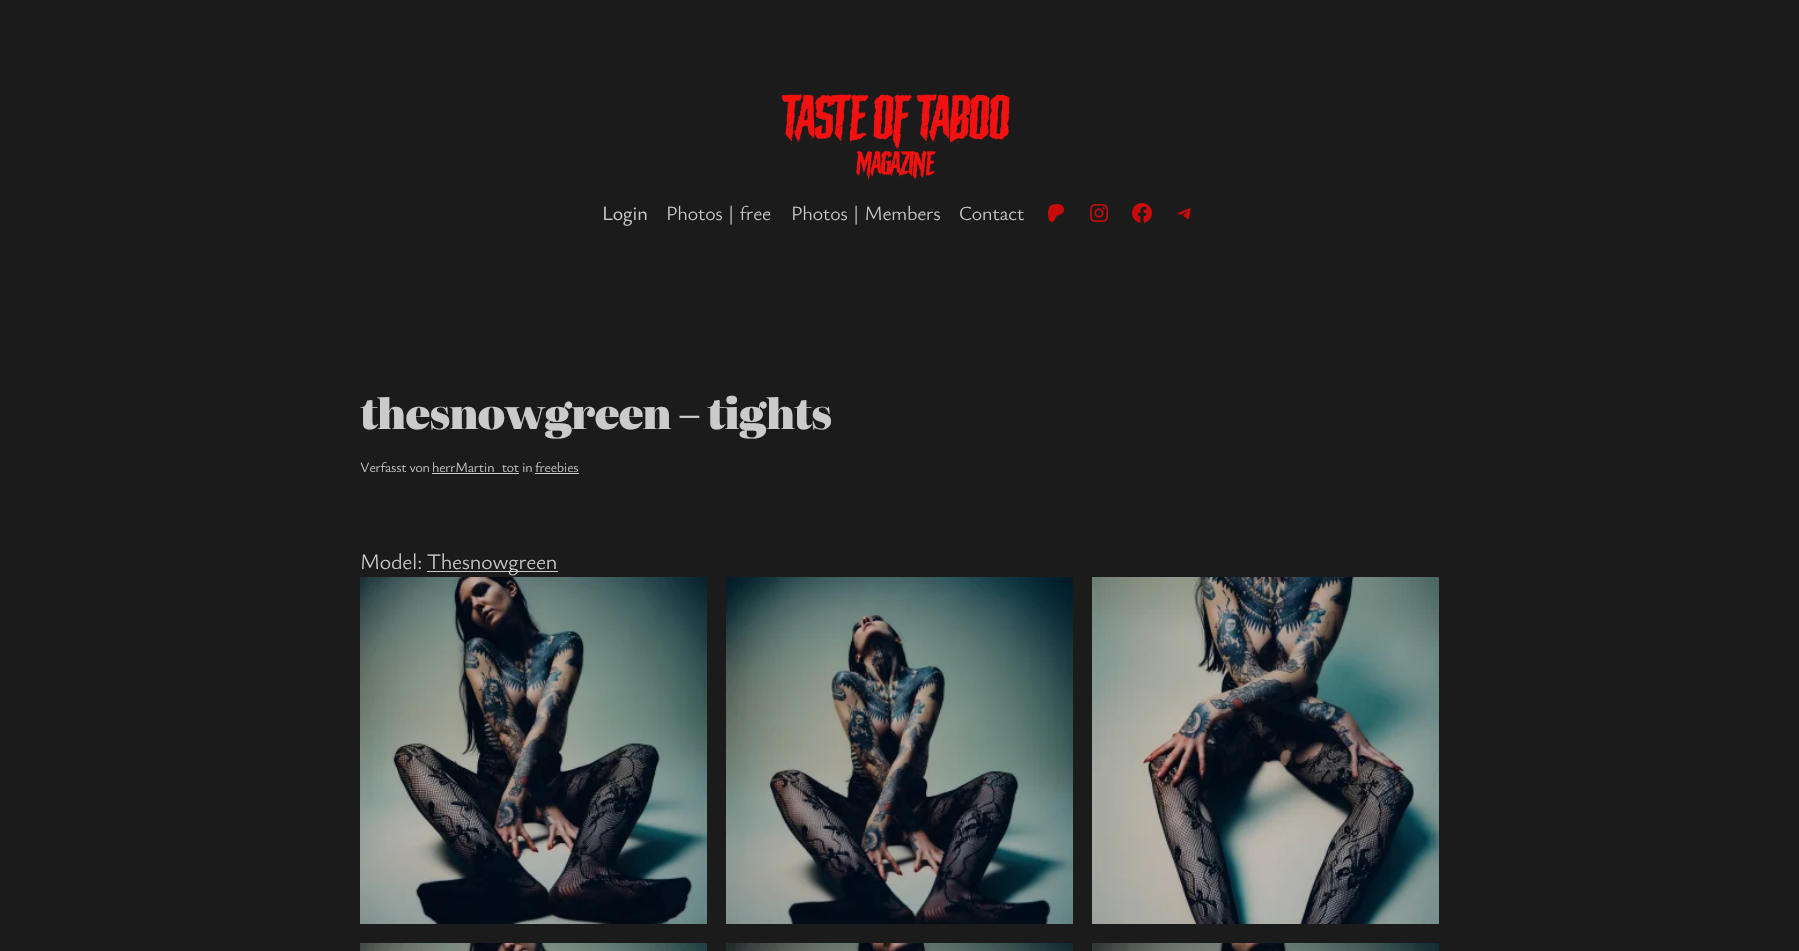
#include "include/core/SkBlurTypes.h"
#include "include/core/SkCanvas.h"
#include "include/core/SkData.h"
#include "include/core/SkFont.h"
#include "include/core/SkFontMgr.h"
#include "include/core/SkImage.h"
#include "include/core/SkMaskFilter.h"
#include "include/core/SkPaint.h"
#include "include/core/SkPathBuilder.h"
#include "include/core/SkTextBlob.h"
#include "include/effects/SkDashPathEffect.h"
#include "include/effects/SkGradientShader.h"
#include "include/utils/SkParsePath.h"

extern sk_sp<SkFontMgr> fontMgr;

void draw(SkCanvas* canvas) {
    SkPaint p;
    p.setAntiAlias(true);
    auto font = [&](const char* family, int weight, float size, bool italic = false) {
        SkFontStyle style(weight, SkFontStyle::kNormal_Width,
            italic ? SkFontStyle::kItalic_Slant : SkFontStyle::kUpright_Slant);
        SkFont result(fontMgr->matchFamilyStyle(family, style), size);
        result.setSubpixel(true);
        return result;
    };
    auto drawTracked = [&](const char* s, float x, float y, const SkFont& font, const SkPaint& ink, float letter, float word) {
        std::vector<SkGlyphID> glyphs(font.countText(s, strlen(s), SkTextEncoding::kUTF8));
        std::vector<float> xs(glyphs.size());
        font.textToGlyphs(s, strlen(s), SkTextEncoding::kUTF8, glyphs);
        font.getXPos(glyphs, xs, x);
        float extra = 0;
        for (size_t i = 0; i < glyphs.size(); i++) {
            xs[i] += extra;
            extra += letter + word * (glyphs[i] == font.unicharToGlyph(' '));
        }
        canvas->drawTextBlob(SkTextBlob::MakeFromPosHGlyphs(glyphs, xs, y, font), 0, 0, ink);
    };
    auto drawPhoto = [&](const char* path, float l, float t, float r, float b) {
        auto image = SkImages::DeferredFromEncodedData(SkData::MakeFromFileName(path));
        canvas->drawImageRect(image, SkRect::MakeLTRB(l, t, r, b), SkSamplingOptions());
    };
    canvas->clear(0xFF1B1B1B);
    drawPhoto("media/1.png", 781, 94, 1010, 180);
    auto font1 = font("Ysabeau Office", 400, 20);
    p.setColor(0xFFCBCBCB);
    drawTracked("Login", 602, 220, font1, p, -0.25f, 0);
    auto font2 = font("Ysabeau Office", 300, 20);
    {
        const struct { const char* s; float x, y; } items[] = {
            {"Photos | free", 666, 220},
            {"Photos | Members", 791, 220},
            {"Contact", 959, 220},
        };
        for (auto [s, x, y] : items) {
            drawTracked(s, x, y, font2, p, -0.25f, 0);
        }
    }
    drawPhoto("media/2.png", 1048, 204, 1064, 222);
    drawPhoto("media/3.png", 1090, 204, 1108, 222);
    drawPhoto("media/4.png", 1132, 203, 1152, 223);
    drawPhoto("media/5.png", 1177, 208, 1191, 219);
    auto font3 = font("Literata", 900, 41.6f);
    drawTracked("thesnowgreen – tights", 360, 429, font3, p, -1, 0);
    auto font4 = font("Ysabeau Office", 300, 14);
    drawTracked("Verfasst von", 360, 472, font4, p, -0.25f, 0);
    canvas->drawRect(SkRect::MakeLTRB(432, 473, 519, 474), p);
    {
        const struct { const char* s; float x, y; } items[] = {
            {"herrMartin_tot", 432, 472},
            {"in", 522, 472},
            {"freebies", 535, 472},
        };
        for (auto [s, x, y] : items) {
            drawTracked(s, x, y, font4, p, -0.25f, 0);
        }
    }
    canvas->drawRect(SkRect::MakeLTRB(535, 473, 579, 474), p);
    auto font5 = font("Ysabeau Office", 300, 22);
    drawTracked("Model:", 360, 569, font5, p, -0.25f, 0);
    canvas->drawRect(SkRect::MakeLTRB(427, 571, 558, 572), p);
    drawTracked("Thesnowgreen", 427, 569, font5, p, -0.25f, 0);
    drawPhoto("media/6.png", 360, 577, 707, 924);
    drawPhoto("media/7.png", 726, 577, 1073, 924);
    drawPhoto("media/8.png", 1092, 577, 1439, 924);
    drawPhoto("media/9.png", 360, 943, 707, 951);
    drawPhoto("media/10.png", 726, 943, 1073, 951);
    drawPhoto("media/11.png", 1092, 943, 1439, 951);
}
